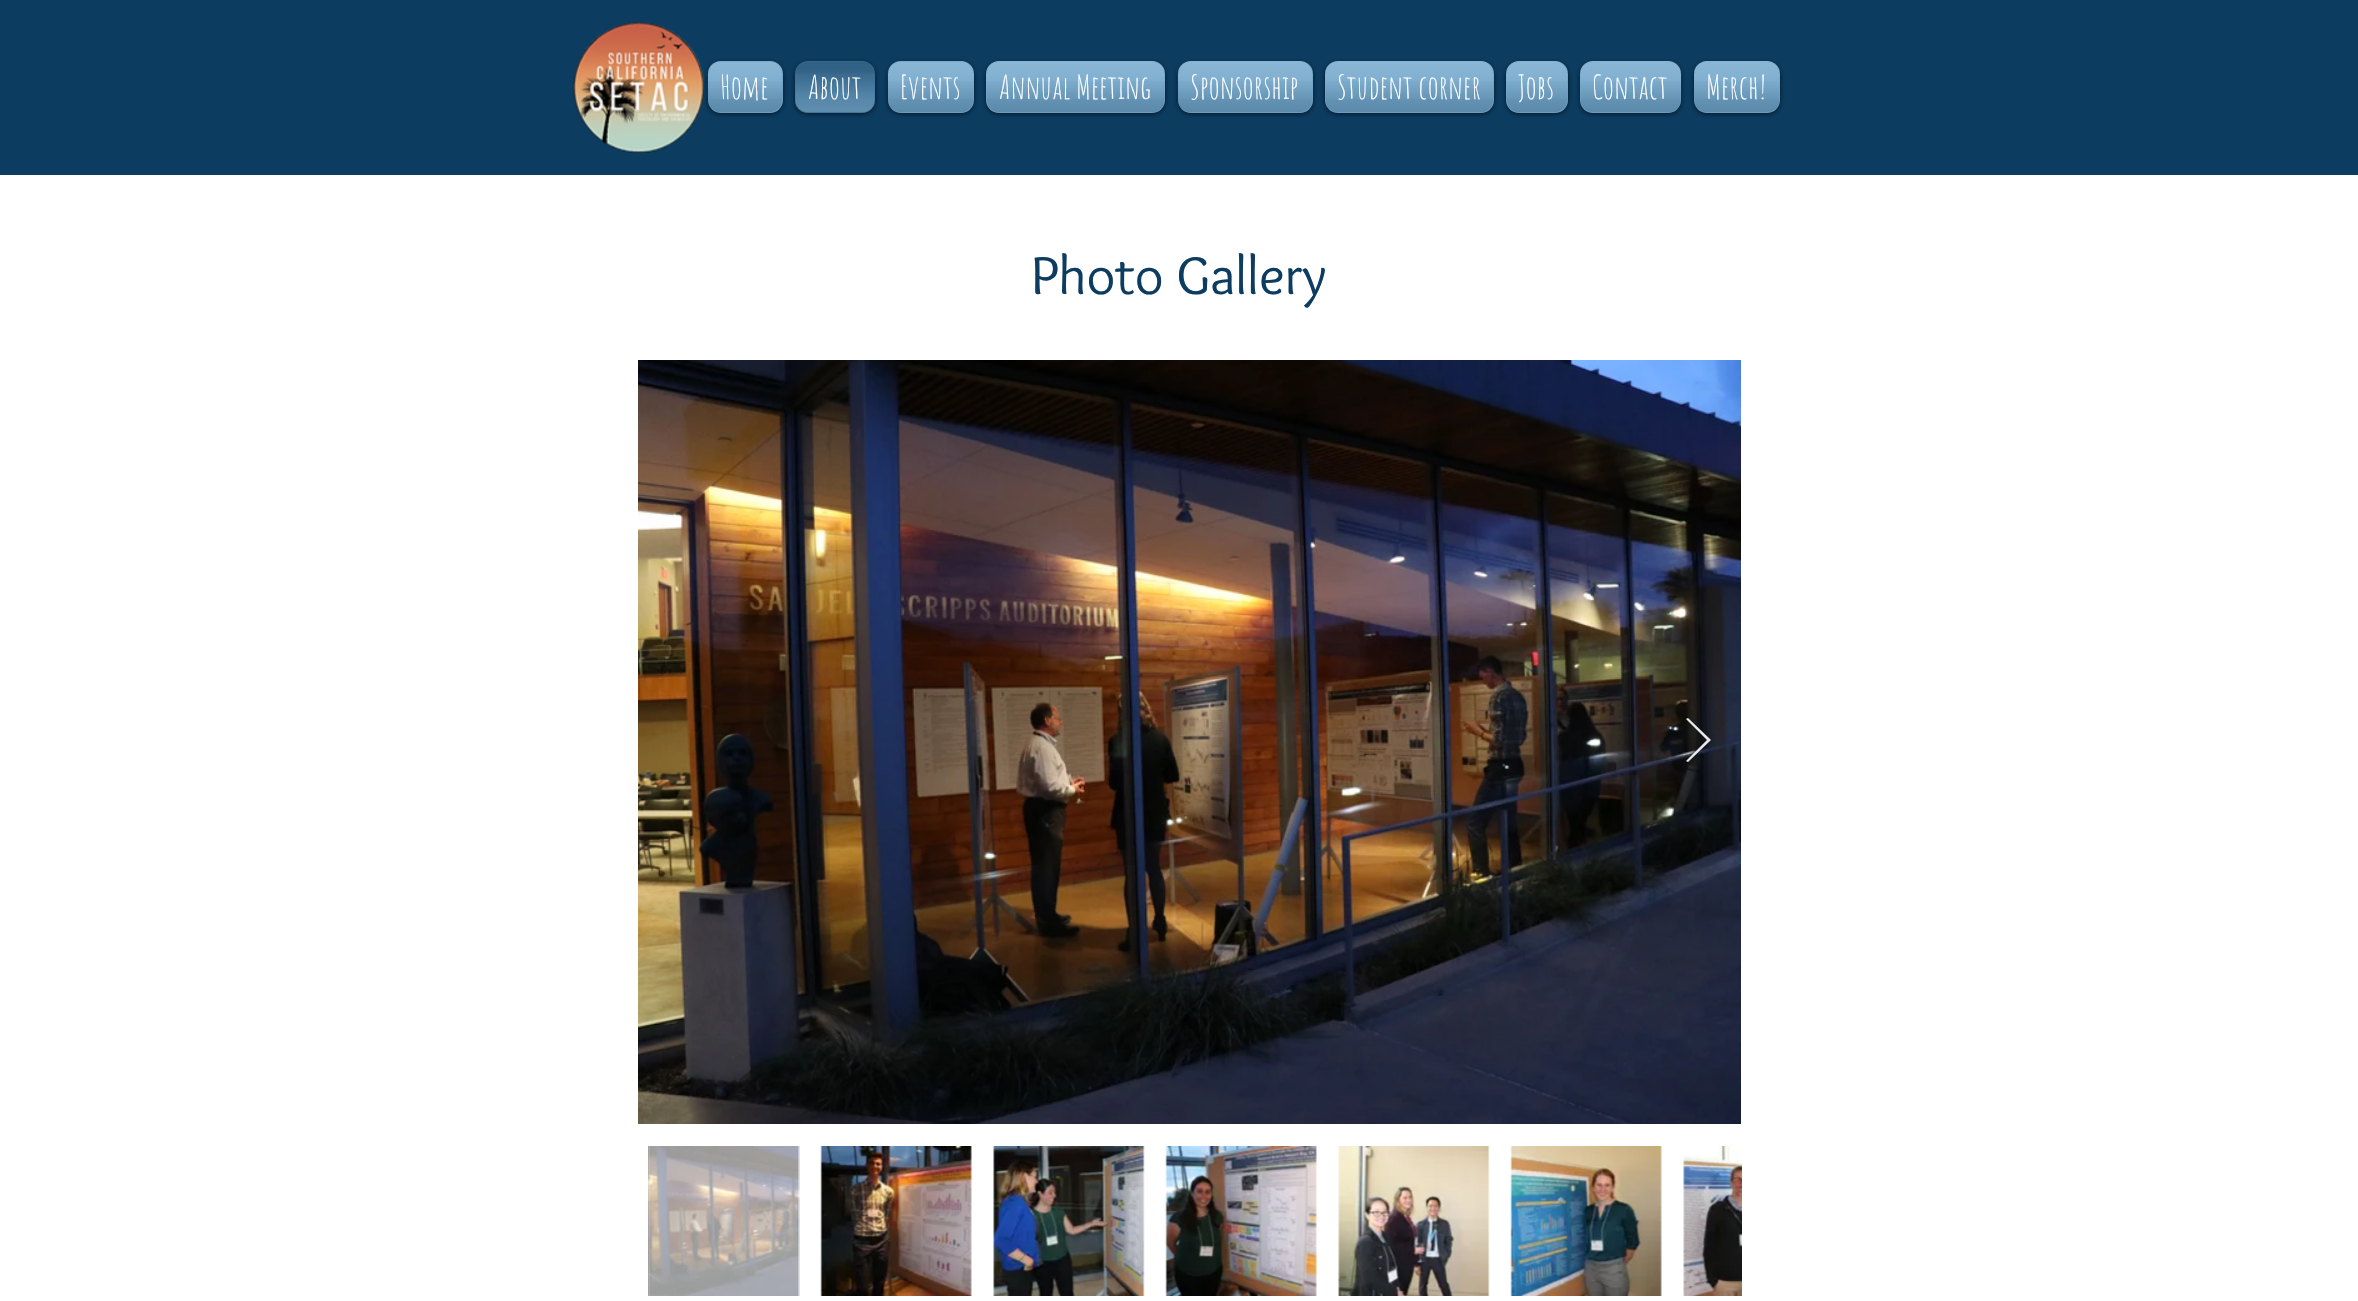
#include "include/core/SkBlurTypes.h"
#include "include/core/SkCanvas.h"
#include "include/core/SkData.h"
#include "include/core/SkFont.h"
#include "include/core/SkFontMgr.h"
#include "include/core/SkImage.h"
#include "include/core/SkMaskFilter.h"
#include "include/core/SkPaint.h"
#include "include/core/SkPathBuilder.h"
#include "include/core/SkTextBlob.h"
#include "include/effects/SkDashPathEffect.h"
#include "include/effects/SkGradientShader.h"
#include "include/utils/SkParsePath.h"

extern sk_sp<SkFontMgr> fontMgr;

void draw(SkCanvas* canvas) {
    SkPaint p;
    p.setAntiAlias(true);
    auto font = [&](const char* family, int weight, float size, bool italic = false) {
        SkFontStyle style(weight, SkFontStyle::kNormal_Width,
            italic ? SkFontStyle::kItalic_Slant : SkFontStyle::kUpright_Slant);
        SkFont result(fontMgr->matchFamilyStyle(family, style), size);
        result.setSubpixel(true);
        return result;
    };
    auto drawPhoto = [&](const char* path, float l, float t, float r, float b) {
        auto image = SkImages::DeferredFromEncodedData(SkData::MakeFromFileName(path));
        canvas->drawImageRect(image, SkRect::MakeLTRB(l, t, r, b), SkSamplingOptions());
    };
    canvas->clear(0xFFFFFFFF);
    p.setColor(0xFF0C3C60);
    canvas->drawRect(SkRect::MakeLTRB(0, 0, 2358, 175), p);
    drawPhoto("media/1.png", 573, 22, 704, 153);
    p.setColor(0x99000000);
    p.setMaskFilter(SkMaskFilter::MakeBlur(kNormal_SkBlurStyle, 2.5f));
    canvas->drawRoundRect(SkRect::MakeLTRB(708, 63, 783, 114), 13, 13, p);
    p.setMaskFilter(nullptr);
    p.setColor(0xFF6EA4CA);
    canvas->drawRoundRect(SkRect::MakeLTRB(708, 61, 783, 113), 13, 13, p);
    drawPhoto("media/2.png", 707, 61, 783, 99);
    drawPhoto("media/3.png", 708, 81, 783, 113);
    auto font1 = font("Amatic SC", 400, 32.5f);
    p.setColor(0xFFFFFFFF);
    canvas->drawString("Home", 720, 99, font1, p);
    p.setColor(0x99000000);
    p.setMaskFilter(SkMaskFilter::MakeBlur(kNormal_SkBlurStyle, 2.5f));
    canvas->drawRoundRect(SkRect::MakeLTRB(795, 63, 875, 114), 13, 13, p);
    p.setMaskFilter(nullptr);
    p.setColor(0xFF39729B);
    canvas->drawRoundRect(SkRect::MakeLTRB(795, 61, 875, 113), 13, 13, p);
    drawPhoto("media/4.png", 795, 61, 875, 92);
    drawPhoto("media/5.png", 795, 73, 875, 113);
    p.setColor(0xFFFFFFFF);
    canvas->drawString("About", 808, 99, font1, p);
    p.setColor(0x99000000);
    p.setMaskFilter(SkMaskFilter::MakeBlur(kNormal_SkBlurStyle, 2.5f));
    canvas->drawRoundRect(SkRect::MakeLTRB(888, 63, 974, 114), 13, 13, p);
    p.setMaskFilter(nullptr);
    p.setColor(0xFF6EA4CA);
    canvas->drawRoundRect(SkRect::MakeLTRB(888, 61, 974, 113), 13, 13, p);
    drawPhoto("media/6.png", 887, 61, 974, 99);
    drawPhoto("media/7.png", 887, 81, 974, 113);
    p.setColor(0xFFFFFFFF);
    canvas->drawString("Events", 900, 99, font1, p);
    p.setColor(0x99000000);
    p.setMaskFilter(SkMaskFilter::MakeBlur(kNormal_SkBlurStyle, 2.5f));
    canvas->drawRoundRect(SkRect::MakeLTRB(986, 63, 1165, 114), 13, 13, p);
    p.setMaskFilter(nullptr);
    p.setColor(0xFF6EA4CA);
    canvas->drawRoundRect(SkRect::MakeLTRB(986, 61, 1165, 113), 13, 13, p);
    drawPhoto("media/8.png", 986, 61, 1165, 99);
    drawPhoto("media/9.png", 986, 81, 1165, 113);
    p.setColor(0xFFFFFFFF);
    canvas->drawString("Annual Meeting", 999, 99, font1, p);
    p.setColor(0x99000000);
    p.setMaskFilter(SkMaskFilter::MakeBlur(kNormal_SkBlurStyle, 2.5f));
    canvas->drawRoundRect(SkRect::MakeLTRB(1178, 63, 1313, 114), 13, 13, p);
    p.setMaskFilter(nullptr);
    p.setColor(0xFF6EA4CA);
    canvas->drawRoundRect(SkRect::MakeLTRB(1178, 61, 1313, 113), 13, 13, p);
    drawPhoto("media/10.png", 1177, 61, 1313, 99);
    drawPhoto("media/11.png", 1177, 81, 1313, 113);
    p.setColor(0xFFFFFFFF);
    canvas->drawString("Sponsorship", 1190, 99, font1, p);
    p.setColor(0x99000000);
    p.setMaskFilter(SkMaskFilter::MakeBlur(kNormal_SkBlurStyle, 2.5f));
    canvas->drawRoundRect(SkRect::MakeLTRB(1325, 63, 1494, 114), 13, 13, p);
    p.setMaskFilter(nullptr);
    p.setColor(0xFF6EA4CA);
    canvas->drawRoundRect(SkRect::MakeLTRB(1325, 61, 1494, 113), 13, 13, p);
    drawPhoto("media/12.png", 1325, 61, 1494, 99);
    drawPhoto("media/13.png", 1325, 81, 1494, 113);
    p.setColor(0xFFFFFFFF);
    canvas->drawString("Student corner", 1337, 99, font1, p);
    p.setColor(0x99000000);
    p.setMaskFilter(SkMaskFilter::MakeBlur(kNormal_SkBlurStyle, 2.5f));
    canvas->drawRoundRect(SkRect::MakeLTRB(1506, 63, 1568, 114), 13, 13, p);
    p.setMaskFilter(nullptr);
    p.setColor(0xFF6EA4CA);
    canvas->drawRoundRect(SkRect::MakeLTRB(1506, 61, 1568, 113), 13, 13, p);
    drawPhoto("media/14.png", 1506, 61, 1568, 99);
    drawPhoto("media/15.png", 1506, 81, 1568, 113);
    p.setColor(0xFFFFFFFF);
    canvas->drawString("Jobs", 1518, 99, font1, p);
    p.setColor(0x99000000);
    p.setMaskFilter(SkMaskFilter::MakeBlur(kNormal_SkBlurStyle, 2.5f));
    canvas->drawRoundRect(SkRect::MakeLTRB(1580, 63, 1681, 114), 13, 13, p);
    p.setMaskFilter(nullptr);
    p.setColor(0xFF6EA4CA);
    canvas->drawRoundRect(SkRect::MakeLTRB(1580, 61, 1681, 113), 13, 13, p);
    drawPhoto("media/16.png", 1580, 61, 1682, 99);
    drawPhoto("media/17.png", 1580, 81, 1681, 113);
    p.setColor(0xFFFFFFFF);
    canvas->drawString("Contact", 1592, 99, font1, p);
    p.setColor(0x99000000);
    p.setMaskFilter(SkMaskFilter::MakeBlur(kNormal_SkBlurStyle, 2.5f));
    canvas->drawRoundRect(SkRect::MakeLTRB(1694, 63, 1780, 114), 13, 13, p);
    p.setMaskFilter(nullptr);
    p.setColor(0xFF6EA4CA);
    canvas->drawRoundRect(SkRect::MakeLTRB(1694, 61, 1780, 113), 13, 13, p);
    drawPhoto("media/18.png", 1694, 61, 1780, 99);
    drawPhoto("media/19.png", 1694, 81, 1780, 113);
    p.setColor(0xFFFFFFFF);
    canvas->drawString("Merch!", 1706, 99, font1, p);
    auto font2 = font("Overlock", 400, 55);
    p.setColor(0xFF0C3C60);
    canvas->drawString("Photo Gallery", 1031, 294, font2, p);
    drawPhoto("media/20.png", 638, 360, 1741, 1124);
    p.setColor(0xE6FFFFFF);
    canvas->drawPath(SkPathBuilder().moveTo(1686, 719).lineTo(1688, 718).lineTo(1711, 740).lineTo(1688, 762).lineTo(1686, 761).lineTo(1707, 740).close().detach(), p);
    drawPhoto("media/21.png", 648, 1146, 800, 1296);
    drawPhoto("media/22.png", 820, 1146, 972, 1296);
    drawPhoto("media/23.png", 993, 1146, 1145, 1296);
    drawPhoto("media/24.png", 1165, 1146, 1317, 1296);
    drawPhoto("media/25.png", 1338, 1146, 1490, 1296);
    drawPhoto("media/26.png", 1510, 1146, 1662, 1296);
    drawPhoto("media/27.png", 1683, 1146, 1742, 1296);
}
